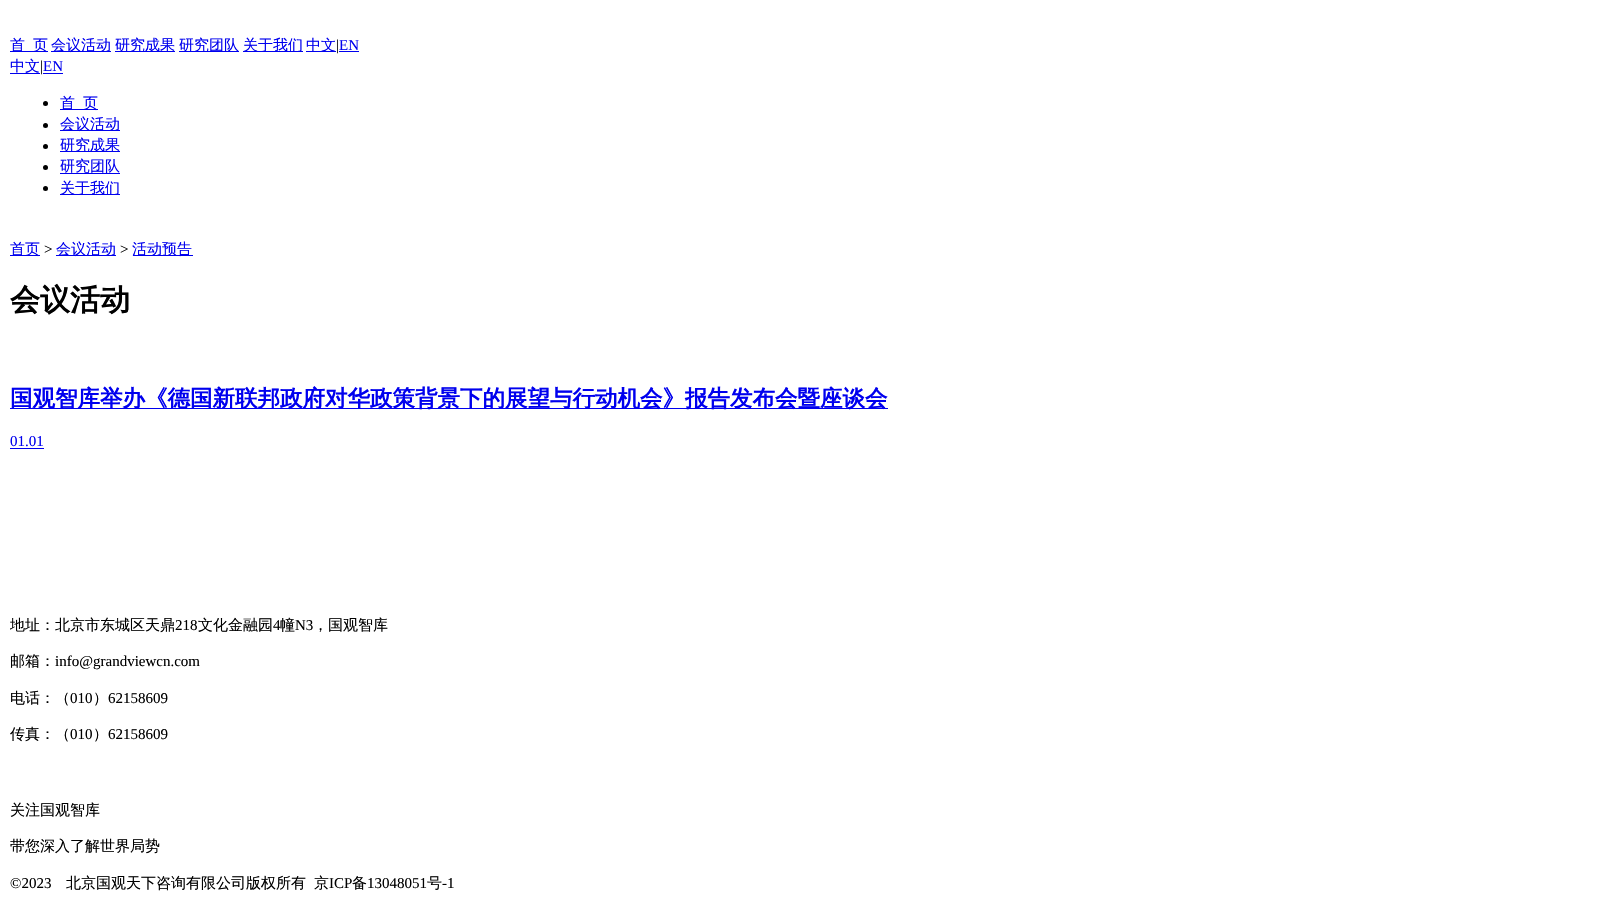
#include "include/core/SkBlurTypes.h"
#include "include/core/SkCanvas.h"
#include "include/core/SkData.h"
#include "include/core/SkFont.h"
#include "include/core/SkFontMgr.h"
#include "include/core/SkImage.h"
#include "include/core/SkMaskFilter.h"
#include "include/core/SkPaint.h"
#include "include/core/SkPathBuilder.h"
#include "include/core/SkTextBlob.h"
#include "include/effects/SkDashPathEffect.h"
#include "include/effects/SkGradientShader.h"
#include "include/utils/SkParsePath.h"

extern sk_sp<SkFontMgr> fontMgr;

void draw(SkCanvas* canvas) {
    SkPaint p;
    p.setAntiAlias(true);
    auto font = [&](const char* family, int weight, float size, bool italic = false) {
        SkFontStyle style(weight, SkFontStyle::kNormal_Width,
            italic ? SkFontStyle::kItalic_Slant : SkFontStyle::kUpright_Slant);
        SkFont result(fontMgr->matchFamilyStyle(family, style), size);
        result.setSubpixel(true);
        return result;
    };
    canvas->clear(0xFFFFFFFF);
    p.setColor(0xFF0000EE);
    canvas->drawRect(SkRect::MakeLTRB(10, 51, 48, 52), p);
    auto font1 = font("WenQuanYi Zen Hei", 500, 15);
    canvas->drawString("首", 10, 50, font1, p);
    canvas->drawString("页", 33, 50, font1, p);
    canvas->drawRect(SkRect::MakeLTRB(51, 51, 111, 52), p);
    canvas->drawString("会议活动", 51, 50, font1, p);
    canvas->drawRect(SkRect::MakeLTRB(115, 51, 175, 52), p);
    canvas->drawString("研究成果", 115, 50, font1, p);
    canvas->drawRect(SkRect::MakeLTRB(179, 51, 239, 52), p);
    canvas->drawString("研究团队", 179, 50, font1, p);
    canvas->drawRect(SkRect::MakeLTRB(243, 51, 303, 52), p);
    canvas->drawString("关于我们", 243, 50, font1, p);
    canvas->drawRect(SkRect::MakeLTRB(306, 51, 336, 52), p);
    canvas->drawString("中文", 306, 50, font1, p);
    auto font2 = font("Liberation Serif", 400, 15);
    p.setColor(0xFF000000);
    canvas->drawString("|", 336, 50, font2, p);
    p.setColor(0xFF0000EE);
    canvas->drawRect(SkRect::MakeLTRB(339, 51, 359, 52), p);
    canvas->drawString("EN", 339, 50, font2, p);
    canvas->drawString("中文", 10, 71, font1, p);
    p.setColor(0xFF000000);
    canvas->drawString("|", 40, 71, font2, p);
    p.setColor(0xFF0000EE);
    canvas->drawRect(SkRect::MakeLTRB(10, 73, 40, 74), p);
    canvas->drawRect(SkRect::MakeLTRB(43, 73, 63, 74), p);
    canvas->drawString("EN", 43, 71, font2, p);
    p.setColor(0xFF000000);
    canvas->drawCircle(45.5f, 103.5f, 2.5f, p);
    p.setColor(0xFF0000EE);
    canvas->drawRect(SkRect::MakeLTRB(60, 109, 98, 110), p);
    canvas->drawString("首", 60, 108, font1, p);
    canvas->drawString("页", 83, 108, font1, p);
    p.setColor(0xFF000000);
    canvas->drawCircle(45.5f, 125.5f, 2.5f, p);
    p.setColor(0xFF0000EE);
    canvas->drawRect(SkRect::MakeLTRB(60, 130, 120, 131), p);
    canvas->drawString("会议活动", 60, 129, font1, p);
    p.setColor(0xFF000000);
    canvas->drawCircle(45.5f, 146.5f, 2.5f, p);
    p.setColor(0xFF0000EE);
    canvas->drawRect(SkRect::MakeLTRB(60, 151, 120, 152), p);
    canvas->drawString("研究成果", 60, 150, font1, p);
    p.setColor(0xFF000000);
    canvas->drawCircle(45.5f, 167.5f, 2.5f, p);
    p.setColor(0xFF0000EE);
    canvas->drawString("研究团队", 60, 171, font1, p);
    canvas->drawRect(SkRect::MakeLTRB(60, 173, 120, 174), p);
    p.setColor(0xFF000000);
    canvas->drawCircle(45.5f, 188.5f, 2.5f, p);
    p.setColor(0xFF0000EE);
    canvas->drawRect(SkRect::MakeLTRB(60, 194, 120, 195), p);
    canvas->drawString("关于我们", 60, 193, font1, p);
    canvas->drawRect(SkRect::MakeLTRB(10, 255, 40, 256), p);
    canvas->drawString("首页", 10, 254, font1, p);
    p.setColor(0xFF000000);
    canvas->drawString(">", 44, 254, font2, p);
    p.setColor(0xFF0000EE);
    canvas->drawRect(SkRect::MakeLTRB(56, 255, 116, 256), p);
    canvas->drawString("会议活动", 56, 254, font1, p);
    p.setColor(0xFF000000);
    canvas->drawString(">", 120, 254, font2, p);
    p.setColor(0xFF0000EE);
    canvas->drawRect(SkRect::MakeLTRB(133, 255, 193, 256), p);
    canvas->drawString("活动预告", 132, 254, font1, p);
    auto font3 = font("WenQuanYi Zen Hei", 700, 30);
    p.setColor(0xFF000000);
    canvas->drawString("会议活动", 10, 310, font3, p);
    p.setColor(0xFF0000EE);
    canvas->drawRect(SkRect::MakeLTRB(10, 408, 888, 409), p);
    auto font4 = font("WenQuanYi Zen Hei", 700, 22.5f);
    canvas->drawString("国观智库举办《德国新联邦政府对华政策背景下的展望与行动机会》报告发布会暨座谈会", 10, 406, font4, p);
    canvas->drawString("01.01", 10, 446, font2, p);
    canvas->drawRect(SkRect::MakeLTRB(10, 448, 44, 449), p);
    p.setColor(0xFF000000);
    canvas->drawString("地址：北京市东城区天鼎", 10, 630, font1, p);
    canvas->drawString("218", 175, 630, font2, p);
    canvas->drawString("文化金融园", 198, 630, font1, p);
    canvas->drawString("4", 273, 630, font2, p);
    canvas->drawString("幢", 280, 630, font1, p);
    canvas->drawString("N3", 295, 630, font2, p);
    canvas->drawString("，国观智库", 313, 630, font1, p);
    canvas->drawString("邮箱：", 10, 666, font1, p);
    canvas->drawString("info@grandviewcn.com", 55, 666, font2, p);
    canvas->drawString("电话：（", 10, 703, font1, p);
    canvas->drawString("010", 70, 703, font2, p);
    canvas->drawString("）", 93, 703, font1, p);
    canvas->drawString("62158609", 108, 703, font2, p);
    canvas->drawString("传真：（", 10, 739, font1, p);
    canvas->drawString("010", 70, 739, font2, p);
    canvas->drawString("）", 93, 739, font1, p);
    canvas->drawString("62158609", 108, 739, font2, p);
    canvas->drawString("关注国观智库", 10, 815, font1, p);
    canvas->drawString("带您深入了解世界局势", 10, 851, font1, p);
    canvas->drawString("©2023", 10, 888, font2, p);
    canvas->drawString("北京国观天下咨询有限公司版权所有", 66, 888, font1, p);
    canvas->drawString("京", 314, 888, font1, p);
    canvas->drawString("ICP", 329, 888, font2, p);
    canvas->drawString("备", 352, 888, font1, p);
    canvas->drawString("13048051", 367, 888, font2, p);
    canvas->drawString("号", 427, 888, font1, p);
    canvas->drawString("-1", 442, 888, font2, p);
}
